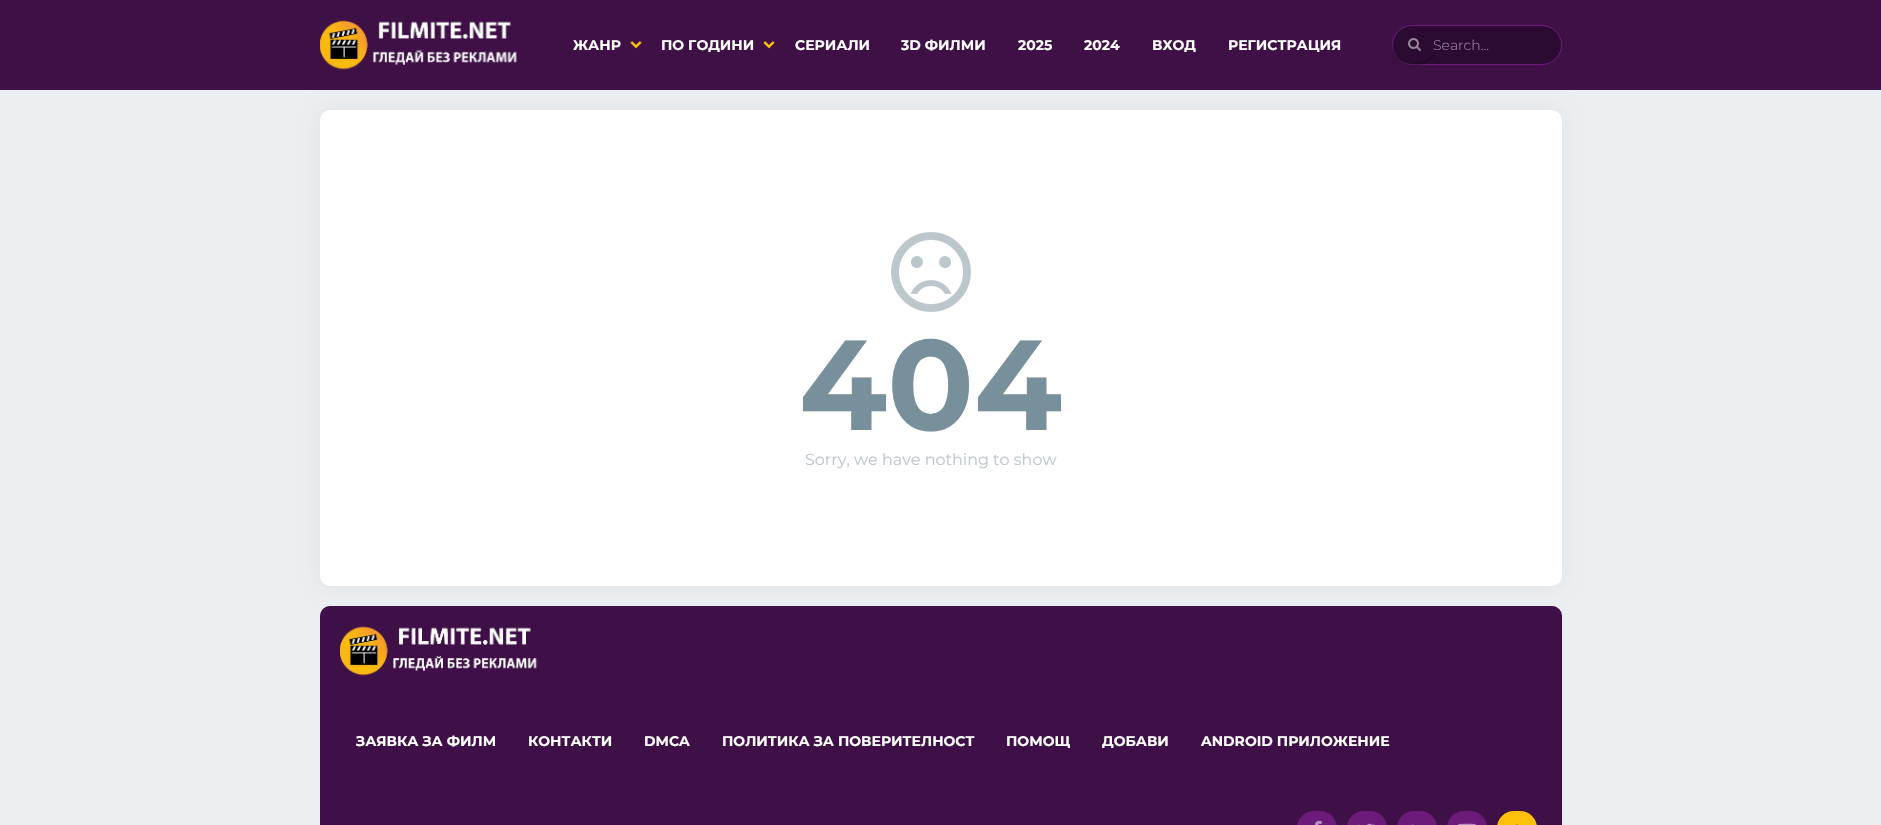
#include "include/core/SkBlurTypes.h"
#include "include/core/SkCanvas.h"
#include "include/core/SkData.h"
#include "include/core/SkFont.h"
#include "include/core/SkFontMgr.h"
#include "include/core/SkImage.h"
#include "include/core/SkMaskFilter.h"
#include "include/core/SkPaint.h"
#include "include/core/SkPathBuilder.h"
#include "include/core/SkTextBlob.h"
#include "include/effects/SkDashPathEffect.h"
#include "include/effects/SkGradientShader.h"
#include "include/utils/SkParsePath.h"

extern sk_sp<SkFontMgr> fontMgr;

void draw(SkCanvas* canvas) {
    SkPaint p;
    p.setAntiAlias(true);
    auto font = [&](const char* family, int weight, float size, bool italic = false) {
        SkFontStyle style(weight, SkFontStyle::kNormal_Width,
            italic ? SkFontStyle::kItalic_Slant : SkFontStyle::kUpright_Slant);
        SkFont result(fontMgr->matchFamilyStyle(family, style), size);
        result.setSubpixel(true);
        return result;
    };
    auto drawPhoto = [&](const char* path, float l, float t, float r, float b) {
        auto image = SkImages::DeferredFromEncodedData(SkData::MakeFromFileName(path));
        canvas->drawImageRect(image, SkRect::MakeLTRB(l, t, r, b), SkSamplingOptions());
    };
    canvas->clear(0xFFECEFF1);
    p.setColor(0xFF9C27B0);
    canvas->drawRoundRect(SkRect::MakeLTRB(320, 606, 1562, 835), 10, 10, p);
    p.setColor(0x99000000);
    canvas->drawRoundRect(SkRect::MakeLTRB(320, 606, 1562, 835), 10, 10, p);
    p.setColor(0x0D000000);
    p.setMaskFilter(SkMaskFilter::MakeBlur(kNormal_SkBlurStyle, 10));
    canvas->drawRoundRect(SkRect::MakeLTRB(320, 110, 1562, 586), 10, 10, p);
    p.setMaskFilter(nullptr);
    p.setColor(0xFF3E1046);
    canvas->drawRect(SkRect::MakeLTRB(0, 0, 1881, 90), p);
    drawPhoto("media/1.png", 320, 20, 517, 70);
    auto font1 = font("Montserrat", 700, 14);
    p.setColor(0xFFFFFFFF);
    canvas->drawString("ЖАНР", 573, 50, font1, p);
    drawPhoto("media/2.png", 630, 41, 642, 49);
    canvas->drawString("ПО ГОДИНИ", 661, 50, font1, p);
    drawPhoto("media/2.png", 763, 41, 775, 49);
    {
        const struct { const char* s; float x, y; } items[] = {
            {"СЕРИАЛИ", 795, 50},
            {"3D ФИЛМИ", 901, 50},
            {"2025", 1018, 50},
            {"2024", 1084, 50},
            {"ВХОД", 1152, 50},
            {"РЕГИСТРАЦИЯ", 1228, 50},
        };
        for (auto [s, x, y] : items) {
            canvas->drawString(s, x, y, font1, p);
        }
    }
    p.setColor(0xFF2B0B31);
    canvas->drawRoundRect(SkRect::MakeLTRB(1392.5f, 25.5f, 1561.5f, 64.5f), 19.5f, 19.5f, p);
    p.setStyle(SkPaint::kStroke_Style);
    p.setStrokeWidth(1);
    p.setColor(0xFF6D1C7B);
    canvas->drawRoundRect(SkRect::MakeLTRB(1392.5f, 25.5f, 1561.5f, 64.5f), 19.5f, 19.5f, p);
    auto font2 = font("Montserrat", 300, 14);
    p.setStyle(SkPaint::kFill_Style);
    p.setColor(0xFF9F88A3);
    canvas->drawString("Search...", 1433, 50, font2, p);
    p.setColor(0x33000000);
    canvas->drawPath(SkPathBuilder().moveTo(1392, 42).cubicTo(1388, 73, 1440, 74, 1437, 43).cubicTo(1435, 69, 1393, 70, 1392, 42).close().detach(), p);
    drawPhoto("media/3.png", 1408, 38, 1421, 51);
    p.setColor(0xFFFFFFFF);
    canvas->drawRoundRect(SkRect::MakeLTRB(320, 110, 1562, 586), 10, 10, p);
    drawPhoto("media/4.png", 891, 232, 971, 312);
    auto font3 = font("Montserrat", 700, 128);
    p.setColor(0xFF78909C);
    canvas->drawString("404", 799, 430, font3, p);
    auto font4 = font("Montserrat", 400, 16);
    p.setColor(0xFFBCC8CE);
    canvas->drawString("Sorry, we have nothing to show", 805, 465, font4, p);
    drawPhoto("media/5.png", 340, 626, 537, 676);
    p.setColor(0xFFFFFFFF);
    {
        const struct { const char* s; float x, y; } items[] = {
            {"ЗАЯВКА ЗА ФИЛМ", 356, 746},
            {"КОНТАКТИ", 528, 746},
            {"DMCA", 644, 746},
            {"ПОЛИТИКА ЗА ПОВЕРИТЕЛНОСТ", 722, 746},
            {"ПОМОЩ", 1006, 746},
            {"ДОБАВИ", 1102, 746},
            {"ANDROID ПРИЛОЖЕНИЕ", 1201, 746},
        };
        for (auto [s, x, y] : items) {
            canvas->drawString(s, x, y, font1, p);
        }
    }
    p.setColor(0xFF6D1B7B);
    canvas->drawRoundRect(SkRect::MakeLTRB(1297, 811, 1337, 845), 20, 20, p);
    drawPhoto("media/6.png", 1315, 820, 1322, 825);
    canvas->drawRoundRect(SkRect::MakeLTRB(1347, 811, 1387, 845), 20, 20, p);
    drawPhoto("media/7.png", 1358, 823, 1375, 825);
    canvas->drawRoundRect(SkRect::MakeLTRB(1397, 811, 1437, 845), 20, 20, p);
    drawPhoto("media/8.png", 1411, 824, 1414, 825);
    canvas->drawRoundRect(SkRect::MakeLTRB(1447, 811, 1487, 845), 20, 20, p);
    drawPhoto("media/9.png", 1458, 823, 1476, 825);
    p.setColor(0xFFFFC107);
    canvas->drawRoundRect(SkRect::MakeLTRB(1497, 811, 1537, 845), 20, 20, p);
    p.setColor(0xFFC49505);
    canvas->drawRect(SkRect::MakeLTRB(1516, 824, 1518, 825), p);
}
